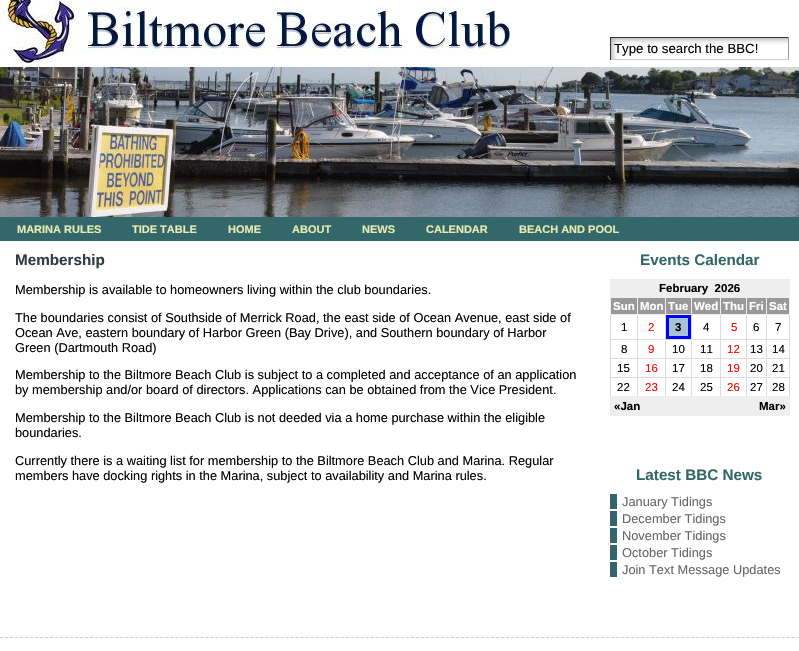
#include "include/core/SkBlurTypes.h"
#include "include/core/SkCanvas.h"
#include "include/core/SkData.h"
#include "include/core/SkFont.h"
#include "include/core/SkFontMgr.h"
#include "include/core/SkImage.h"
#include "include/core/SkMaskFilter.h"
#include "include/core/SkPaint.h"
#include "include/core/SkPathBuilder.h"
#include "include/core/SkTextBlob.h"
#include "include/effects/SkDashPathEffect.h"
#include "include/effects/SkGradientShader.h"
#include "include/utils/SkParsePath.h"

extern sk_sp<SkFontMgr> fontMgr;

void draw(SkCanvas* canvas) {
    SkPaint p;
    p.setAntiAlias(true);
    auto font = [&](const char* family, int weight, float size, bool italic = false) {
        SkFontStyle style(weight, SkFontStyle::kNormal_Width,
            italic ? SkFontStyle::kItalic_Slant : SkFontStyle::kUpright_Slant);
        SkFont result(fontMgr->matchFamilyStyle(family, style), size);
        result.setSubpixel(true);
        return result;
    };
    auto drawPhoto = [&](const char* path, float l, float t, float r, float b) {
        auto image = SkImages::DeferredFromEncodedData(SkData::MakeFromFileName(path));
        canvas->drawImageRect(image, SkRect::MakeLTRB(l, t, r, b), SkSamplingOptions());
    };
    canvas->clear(0xFFFFFFFF);
    drawPhoto("media/1.png", 0, 0, 512, 67);
    drawPhoto("media/2.png", 611, 38, 788, 59);
    {
        const struct { float l, t, r, b; SkColor color; } items[] = {
            {610, 37, 789, 38, 0xFF333333},
            {788, 37, 789, 60, 0xFF999999},
            {610, 59, 789, 60, 0xFFCCCCCC},
            {610, 37, 611, 60, 0xFF333333},
        };
        for (auto [l, t, r, b, color] : items) {
            p.setColor(color);
            canvas->drawRect(SkRect::MakeLTRB(l, t, r, b), p);
        }
    }
    auto font1 = font("Liberation Sans", 400, 13.25f);
    p.setColor(0xFF000000);
    canvas->drawString("Type to search the BBC!", 614, 53, font1, p);
    drawPhoto("media/3.png", 0, 67, 799, 217);
    p.setColor(0xFF346769);
    canvas->drawRect(SkRect::MakeLTRB(0, 217, 799, 241), p);
    auto font2 = font("Liberation Sans", 700, 11);
    p.setColor(0xFFE5EBB2);
    {
        const struct { const char* s; float x, y; } items[] = {
            {"MARINA RULES", 17, 233},
            {"TIDE TABLE", 132, 233},
            {"HOME", 228, 233},
            {"ABOUT", 292, 233},
            {"NEWS", 362, 233},
            {"CALENDAR", 426, 233},
            {"BEACH AND POOL", 519, 233},
        };
        for (auto [s, x, y] : items) {
            canvas->drawString(s, x, y, font2, p);
        }
    }
    auto font3 = font("Liberation Sans", 700, 15.25f);
    p.setColor(0xFF303C3D);
    canvas->drawString("Membership", 15, 265, font3, p);
    auto font4 = font("Liberation Sans", 400, 12.8f);
    p.setColor(0xFF000000);
    {
        const struct { const char* s; float x, y; } items[] = {
            {"Membership is available to homeowners living within the club boundaries.", 15, 294},
            {"The boundaries consist of Southside of Merrick Road, the east side of Ocean Avenue, east side of", 15, 322},
            {"Ocean Ave, eastern boundary of Harbor Green (Bay Drive), and Southern boundary of Harbor", 15, 337},
            {"Green (Dartmouth Road)", 15, 352},
            {"Membership to the Biltmore Beach Club is subject to a completed and acceptance of an application", 15, 379},
            {"by membership and/or board of directors. Applications can be obtained from the Vice President.", 15, 394},
            {"Membership to the Biltmore Beach Club is not deeded via a home purchase within the eligible", 15, 422},
            {"boundaries.", 15, 437},
            {"Currently there is a waiting list for membership to the Biltmore Beach Club and Marina. Regular", 15, 465},
            {"members have docking rights in the Marina, subject to availability and Marina rules.", 15, 480},
        };
        for (auto [s, x, y] : items) {
            canvas->drawString(s, x, y, font4, p);
        }
    }
    p.setColor(0xFF346769);
    canvas->drawString("Events Calendar", 640, 265, font3, p);
    p.setColor(0xFFEEEEEE);
    canvas->drawRect(SkRect::MakeLTRB(610, 279, 790, 297), p);
    auto font5 = font("Liberation Sans", 700, 11.5f);
    p.setColor(0xFF000000);
    canvas->drawString("February  2026", 659, 292, font5, p);
    {
        const struct { float l, t, r, b; SkColor color; } items[] = {
            {611, 298, 637, 314, 0xFF999999},
            {766, 297, 790, 298, 0xFFEEEEEE},
            {766, 339, 790, 340, 0xFFDDDDDD},
            {766, 358, 790, 359, 0xFFDDDDDD},
            {766, 377, 790, 378, 0xFFDDDDDD},
            {789, 377, 790, 397, 0xFFDDDDDD},
            {789, 358, 790, 378, 0xFFDDDDDD},
            {789, 314, 790, 359, 0xFFDDDDDD},
            {789, 297, 790, 315, 0xFFEEEEEE},
            {766, 377, 767, 397, 0xFFDDDDDD},
            {746, 377, 767, 378, 0xFFDDDDDD},
            {766, 358, 767, 378, 0xFFDDDDDD},
            {746, 358, 767, 359, 0xFFDDDDDD},
            {766, 339, 767, 359, 0xFFDDDDDD},
            {746, 339, 767, 340, 0xFFDDDDDD},
            {766, 314, 767, 340, 0xFFDDDDDD},
            {766, 314, 790, 315, 0xFFEEEEEE},
            {766, 297, 767, 315, 0xFFEEEEEE},
            {746, 297, 767, 298, 0xFFEEEEEE},
            {746, 377, 747, 397, 0xFFDDDDDD},
            {720, 377, 747, 378, 0xFFDDDDDD},
            {746, 358, 747, 378, 0xFFDDDDDD},
            {720, 358, 747, 359, 0xFFDDDDDD},
            {746, 339, 747, 359, 0xFFDDDDDD},
            {720, 339, 747, 340, 0xFFDDDDDD},
            {746, 314, 747, 340, 0xFFDDDDDD},
            {746, 314, 767, 315, 0xFFEEEEEE},
            {746, 297, 747, 315, 0xFFEEEEEE},
            {720, 297, 747, 298, 0xFFEEEEEE},
            {720, 377, 721, 397, 0xFFDDDDDD},
            {691, 377, 721, 378, 0xFFDDDDDD},
            {720, 358, 721, 378, 0xFFDDDDDD},
            {691, 358, 721, 359, 0xFFDDDDDD},
            {720, 339, 721, 359, 0xFFDDDDDD},
            {691, 339, 721, 340, 0xFFDDDDDD},
            {720, 314, 721, 340, 0xFFDDDDDD},
            {720, 314, 747, 315, 0xFFEEEEEE},
            {720, 297, 721, 315, 0xFFEEEEEE},
            {691, 297, 721, 298, 0xFFEEEEEE},
            {691, 377, 692, 397, 0xFFDDDDDD},
            {665, 377, 692, 378, 0xFFDDDDDD},
            {691, 358, 692, 378, 0xFFDDDDDD},
            {665, 358, 692, 359, 0xFFDDDDDD},
            {691, 339, 692, 359, 0xFFDDDDDD},
            {665, 339, 692, 340, 0xFFDDDDDD},
            {691, 314, 692, 340, 0xFFDDDDDD},
            {691, 314, 721, 315, 0xFFEEEEEE},
            {691, 297, 692, 315, 0xFFEEEEEE},
            {665, 297, 692, 298, 0xFFEEEEEE},
            {665, 377, 666, 397, 0xFFDDDDDD},
            {637, 377, 666, 378, 0xFFDDDDDD},
            {665, 358, 666, 378, 0xFFDDDDDD},
            {637, 358, 666, 359, 0xFFDDDDDD},
            {665, 339, 666, 359, 0xFFDDDDDD},
            {637, 339, 666, 340, 0xFFDDDDDD},
            {665, 314, 666, 340, 0xFFDDDDDD},
            {665, 314, 692, 315, 0xFFEEEEEE},
            {665, 297, 666, 315, 0xFFEEEEEE},
            {637, 297, 666, 298, 0xFFEEEEEE},
            {637, 377, 638, 397, 0xFFDDDDDD},
            {610, 377, 638, 378, 0xFFDDDDDD},
            {637, 358, 638, 378, 0xFFDDDDDD},
            {610, 358, 638, 359, 0xFFDDDDDD},
            {637, 339, 638, 359, 0xFFDDDDDD},
            {610, 339, 638, 340, 0xFFDDDDDD},
            {637, 314, 638, 340, 0xFFDDDDDD},
            {637, 314, 666, 315, 0xFFEEEEEE},
            {637, 297, 638, 315, 0xFFEEEEEE},
            {610, 297, 638, 298, 0xFFEEEEEE},
            {610, 377, 611, 397, 0xFFDDDDDD},
            {610, 358, 611, 378, 0xFFDDDDDD},
            {610, 314, 611, 359, 0xFFDDDDDD},
            {610, 314, 638, 315, 0xFFEEEEEE},
            {610, 297, 611, 315, 0xFFEEEEEE},
        };
        for (auto [l, t, r, b, color] : items) {
            p.setColor(color);
            canvas->drawRect(SkRect::MakeLTRB(l, t, r, b), p);
        }
    }
    p.setColor(0xFFFFFFFF);
    canvas->drawString("Sun", 613, 310, font5, p);
    p.setColor(0xFF999999);
    canvas->drawRect(SkRect::MakeLTRB(638, 298, 665, 314), p);
    p.setColor(0xFFFFFFFF);
    canvas->drawString("Mon", 640, 310, font5, p);
    p.setColor(0xFF999999);
    canvas->drawRect(SkRect::MakeLTRB(666, 298, 691, 314), p);
    p.setColor(0xFFFFFFFF);
    canvas->drawString("Tue", 668, 310, font5, p);
    p.setColor(0xFF999999);
    canvas->drawRect(SkRect::MakeLTRB(692, 298, 720, 314), p);
    p.setColor(0xFFFFFFFF);
    canvas->drawString("Wed", 694, 310, font5, p);
    p.setColor(0xFF999999);
    canvas->drawRect(SkRect::MakeLTRB(721, 298, 746, 314), p);
    p.setColor(0xFFFFFFFF);
    canvas->drawString("Thu", 723, 310, font5, p);
    p.setColor(0xFF999999);
    canvas->drawRect(SkRect::MakeLTRB(747, 298, 766, 314), p);
    p.setColor(0xFFFFFFFF);
    canvas->drawString("Fri", 749, 310, font5, p);
    p.setColor(0xFF999999);
    canvas->drawRect(SkRect::MakeLTRB(767, 298, 789, 314), p);
    p.setColor(0xFFFFFFFF);
    canvas->drawString("Sat", 769, 310, font5, p);
    auto font6 = font("Liberation Sans", 400, 11.5f);
    p.setColor(0xFF000000);
    canvas->drawString("1", 621, 331, font6, p);
    p.setColor(0xFFFF0000);
    canvas->drawString("2", 648, 331, font6, p);
    p.setColor(0xFFA8C3D6);
    canvas->drawRect(SkRect::MakeLTRB(667.5f, 316.5f, 689.5f, 337.5f), p);
    p.setStyle(SkPaint::kStroke_Style);
    p.setStrokeWidth(3);
    p.setColor(0xFF0000FF);
    canvas->drawRect(SkRect::MakeLTRB(667.5f, 316.5f, 689.5f, 337.5f), p);
    p.setStyle(SkPaint::kFill_Style);
    p.setColor(0xFF000000);
    canvas->drawString("3", 675, 331, font5, p);
    canvas->drawString("4", 703, 331, font6, p);
    p.setColor(0xFFFF0000);
    canvas->drawString("5", 731, 331, font6, p);
    p.setColor(0xFF000000);
    {
        const struct { const char* s; float x, y; } items[] = {
            {"6", 753, 331},
            {"7", 775, 331},
            {"8", 621, 353},
        };
        for (auto [s, x, y] : items) {
            canvas->drawString(s, x, y, font6, p);
        }
    }
    p.setColor(0xFFFF0000);
    canvas->drawString("9", 648, 353, font6, p);
    p.setColor(0xFF000000);
    canvas->drawString("10", 672, 353, font6, p);
    canvas->drawString("11", 700, 353, font6, p);
    p.setColor(0xFFFF0000);
    canvas->drawString("12", 727, 353, font6, p);
    p.setColor(0xFF000000);
    {
        const struct { const char* s; float x, y; } items[] = {
            {"13", 750, 353},
            {"14", 772, 353},
            {"15", 617, 372},
        };
        for (auto [s, x, y] : items) {
            canvas->drawString(s, x, y, font6, p);
        }
    }
    p.setColor(0xFFFF0000);
    canvas->drawString("16", 645, 372, font6, p);
    p.setColor(0xFF000000);
    canvas->drawString("17", 672, 372, font6, p);
    canvas->drawString("18", 700, 372, font6, p);
    p.setColor(0xFFFF0000);
    canvas->drawString("19", 727, 372, font6, p);
    p.setColor(0xFF000000);
    {
        const struct { const char* s; float x, y; } items[] = {
            {"20", 750, 372},
            {"21", 772, 372},
            {"22", 617, 391},
        };
        for (auto [s, x, y] : items) {
            canvas->drawString(s, x, y, font6, p);
        }
    }
    p.setColor(0xFFFF0000);
    canvas->drawString("23", 645, 391, font6, p);
    p.setColor(0xFF000000);
    canvas->drawString("24", 672, 391, font6, p);
    canvas->drawString("25", 700, 391, font6, p);
    p.setColor(0xFFFF0000);
    canvas->drawString("26", 727, 391, font6, p);
    p.setColor(0xFF000000);
    canvas->drawString("27", 750, 391, font6, p);
    canvas->drawString("28", 772, 391, font6, p);
    {
        const struct { float l, t, r, b; SkColor color; } items[] = {
            {611, 397, 666, 415, 0xFFEEEEEE},
            {610, 415, 666, 416, 0xFFEEEEEE},
            {610, 396, 790, 397, 0xFFEEEEEE},
            {610, 396, 611, 416, 0xFFEEEEEE},
        };
        for (auto [l, t, r, b, color] : items) {
            p.setColor(color);
            canvas->drawRect(SkRect::MakeLTRB(l, t, r, b), p);
        }
    }
    p.setColor(0xFF000000);
    canvas->drawString("«Jan", 614, 410, font5, p);
    p.setColor(0xFFEEEEEE);
    canvas->drawRect(SkRect::MakeLTRB(666, 397, 790, 416), p);
    p.setColor(0xFF000000);
    canvas->drawString("Mar»", 759, 410, font5, p);
    p.setColor(0xFF346769);
    canvas->drawString("Latest BBC News", 636, 480, font3, p);
    canvas->drawRect(SkRect::MakeLTRB(610, 494, 617, 509), p);
    p.setColor(0xFF666666);
    canvas->drawString("January Tidings", 622, 506, font4, p);
    p.setColor(0xFF346769);
    canvas->drawRect(SkRect::MakeLTRB(610, 511, 617, 526), p);
    p.setColor(0xFF666666);
    canvas->drawString("December Tidings", 622, 523, font4, p);
    p.setColor(0xFF346769);
    canvas->drawRect(SkRect::MakeLTRB(610, 528, 617, 543), p);
    p.setColor(0xFF666666);
    canvas->drawString("November Tidings", 622, 540, font4, p);
    p.setColor(0xFF346769);
    canvas->drawRect(SkRect::MakeLTRB(610, 545, 617, 560), p);
    p.setColor(0xFF666666);
    canvas->drawString("October Tidings", 622, 557, font4, p);
    p.setColor(0xFF346769);
    canvas->drawRect(SkRect::MakeLTRB(610, 562, 617, 577), p);
    p.setColor(0xFF666666);
    canvas->drawString("Join Text Message Updates", 622, 574, font4, p);
    p.setStyle(SkPaint::kStroke_Style);
    p.setStrokeWidth(1);
    p.setColor(0xFFCCCCCC);
    p.setPathEffect(SkDashPathEffect::Make({{3, 2.01f}}, 0));
    canvas->drawPath(SkPathBuilder().moveTo(0, 637.5f).lineTo(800, 637.5f).detach(), p);
    p.setPathEffect(nullptr);
}
